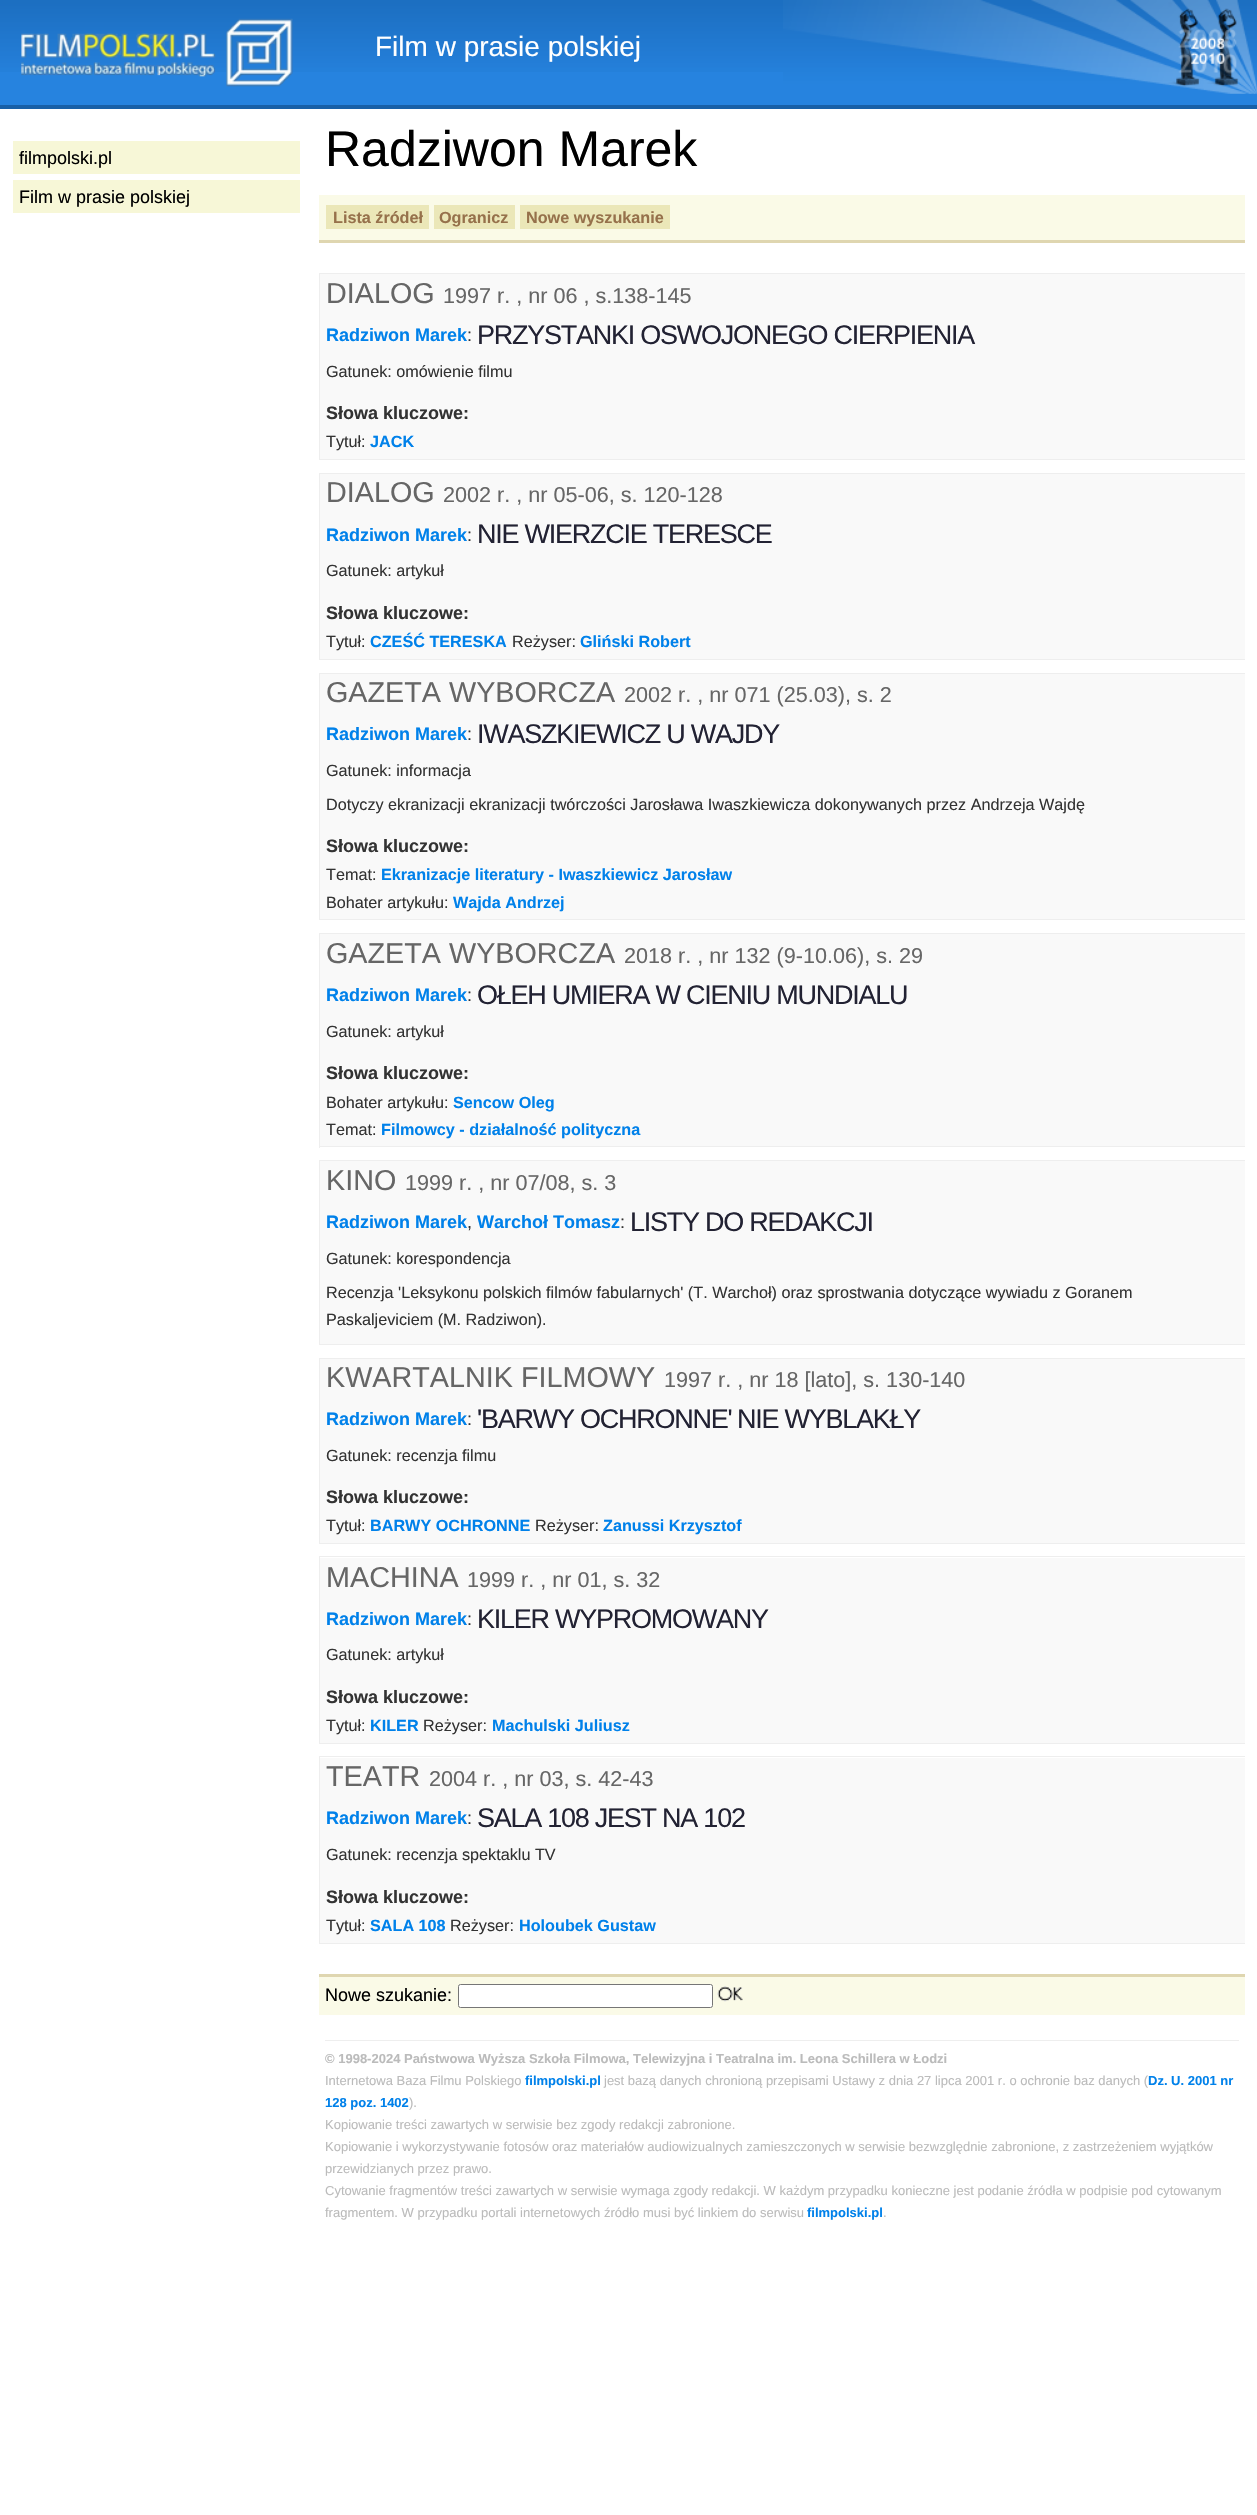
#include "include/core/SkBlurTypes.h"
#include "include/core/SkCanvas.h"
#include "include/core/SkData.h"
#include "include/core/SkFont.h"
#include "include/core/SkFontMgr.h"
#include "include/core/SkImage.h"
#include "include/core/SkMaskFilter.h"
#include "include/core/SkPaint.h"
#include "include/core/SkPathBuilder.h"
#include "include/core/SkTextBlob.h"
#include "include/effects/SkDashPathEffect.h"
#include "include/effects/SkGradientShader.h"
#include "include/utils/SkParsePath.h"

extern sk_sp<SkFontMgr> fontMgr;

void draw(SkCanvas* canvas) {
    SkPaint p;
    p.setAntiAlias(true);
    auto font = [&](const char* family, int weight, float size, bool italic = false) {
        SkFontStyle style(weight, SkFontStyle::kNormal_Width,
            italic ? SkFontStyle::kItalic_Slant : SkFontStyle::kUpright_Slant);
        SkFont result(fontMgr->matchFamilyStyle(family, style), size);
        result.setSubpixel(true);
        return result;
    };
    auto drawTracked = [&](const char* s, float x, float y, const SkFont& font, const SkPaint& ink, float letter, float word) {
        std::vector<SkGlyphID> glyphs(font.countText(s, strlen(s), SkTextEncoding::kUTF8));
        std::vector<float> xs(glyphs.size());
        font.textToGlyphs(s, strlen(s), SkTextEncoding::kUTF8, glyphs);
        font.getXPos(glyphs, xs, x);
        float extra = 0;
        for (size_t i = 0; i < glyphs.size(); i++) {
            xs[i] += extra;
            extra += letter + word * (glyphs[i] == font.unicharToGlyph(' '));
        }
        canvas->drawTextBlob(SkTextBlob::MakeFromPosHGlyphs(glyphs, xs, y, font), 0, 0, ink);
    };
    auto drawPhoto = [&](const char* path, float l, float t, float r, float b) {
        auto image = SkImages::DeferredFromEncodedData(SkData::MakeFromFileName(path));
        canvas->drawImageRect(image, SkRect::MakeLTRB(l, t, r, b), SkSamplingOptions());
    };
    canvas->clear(0xFFFFFFFF);
    p.setColor(0xFF2683DF);
    canvas->drawRect(SkRect::MakeLTRB(0, 72, 1257, 105), p);
    drawPhoto("media/1.png", 0, 0, 783, 72);
    drawPhoto("media/2.png", 783, 0, 1257, 94);
    drawPhoto("media/3.png", 21, 18, 293, 87);
    auto font1 = font("Liberation Sans", 400, 28);
    p.setColor(0xFFFFFFFF);
    canvas->drawString("Film w prasie polskiej", 375, 56, font1, p);
    p.setColor(0xFFF7F7D7);
    canvas->drawRect(SkRect::MakeLTRB(13, 141, 300, 174), p);
    auto font2 = font("Liberation Sans", 400, 18);
    p.setColor(0xFF000000);
    canvas->drawString("filmpolski.pl", 19, 164, font2, p);
    p.setColor(0xFFF7F7D7);
    canvas->drawRect(SkRect::MakeLTRB(13, 180, 300, 213), p);
    p.setColor(0xFF000000);
    canvas->drawString("Film w prasie polskiej", 19, 203, font2, p);
    p.setColor(0xFF1860A7);
    canvas->drawRect(SkRect::MakeLTRB(0, 105, 1257, 109), p);
    auto font3 = font("Liberation Sans", 400, 50);
    p.setColor(0xFF000000);
    canvas->drawString("Radziwon Marek", 325, 166, font3, p);
    {
        const struct { float l, t, r, b; SkColor color; } items[] = {
            {319, 195, 1245, 240, 0xFFFAFAE7},
            {319, 240, 1245, 243, 0xFFDFD6B0},
            {326, 205, 429, 229, 0xFFEBE7B8},
        };
        for (auto [l, t, r, b, color] : items) {
            p.setColor(color);
            canvas->drawRect(SkRect::MakeLTRB(l, t, r, b), p);
        }
    }
    auto font4 = font("Liberation Sans", 700, 16.2f);
    p.setColor(0xFF96714B);
    canvas->drawString("Lista źródeł", 333, 223, font4, p);
    p.setColor(0xFFEBE7B8);
    canvas->drawRect(SkRect::MakeLTRB(434, 205, 515, 229), p);
    p.setColor(0xFF96714B);
    canvas->drawString("Ogranicz", 439, 223, font4, p);
    p.setColor(0xFFEBE7B8);
    canvas->drawRect(SkRect::MakeLTRB(520, 205, 670, 229), p);
    p.setColor(0xFF96714B);
    canvas->drawString("Nowe wyszukanie", 526, 223, font4, p);
    {
        const struct { float l, t, r, b; SkColor color; } items[] = {
            {320, 274, 1245, 459, 0xFFF9F9F9},
            {319, 273, 1245, 274, 0xFFEEEEEE},
            {319, 459, 1245, 460, 0xFFEEEEEE},
            {319, 273, 320, 460, 0xFFEEEEEE},
        };
        for (auto [l, t, r, b, color] : items) {
            p.setColor(color);
            canvas->drawRect(SkRect::MakeLTRB(l, t, r, b), p);
        }
    }
    auto font5 = font("Liberation Sans", 400, 28.75f);
    p.setColor(0xFF666666);
    canvas->drawString("DIALOG", 326, 303, font5, p);
    auto font6 = font("Liberation Sans", 400, 21.6f);
    canvas->drawString("1997 r. , nr 06 , s.138-145", 443, 303, font6, p);
    auto font7 = font("Liberation Sans", 700, 18);
    p.setColor(0xFF0081EA);
    canvas->drawString("Radziwon Marek", 326, 341, font7, p);
    p.setColor(0xFF333333);
    canvas->drawString(":", 467, 341, font2, p);
    auto font8 = font("Liberation Sans", 400, 27);
    p.setColor(0xFF222233);
    drawTracked("PRZYSTANKI OSWOJONEGO CIERPIENIA", 477, 344, font8, p, -1.25f, 0);
    auto font9 = font("Liberation Sans", 400, 16.2f);
    p.setColor(0xFF333333);
    canvas->drawString("Gatunek: omówienie filmu", 326, 377, font9, p);
    canvas->drawString("Słowa kluczowe:", 326, 419, font7, p);
    canvas->drawString("Tytuł:", 326, 447, font9, p);
    p.setColor(0xFF0081EA);
    canvas->drawString("JACK", 370, 447, font4, p);
    {
        const struct { float l, t, r, b; SkColor color; } items[] = {
            {320, 474, 1245, 659, 0xFFF9F9F9},
            {319, 473, 1245, 474, 0xFFEEEEEE},
            {319, 659, 1245, 660, 0xFFEEEEEE},
            {319, 473, 320, 660, 0xFFEEEEEE},
        };
        for (auto [l, t, r, b, color] : items) {
            p.setColor(color);
            canvas->drawRect(SkRect::MakeLTRB(l, t, r, b), p);
        }
    }
    p.setColor(0xFF666666);
    canvas->drawString("DIALOG", 326, 502, font5, p);
    canvas->drawString("2002 r. , nr 05-06, s. 120-128", 443, 502, font6, p);
    p.setColor(0xFF0081EA);
    canvas->drawString("Radziwon Marek", 326, 541, font7, p);
    p.setColor(0xFF333333);
    canvas->drawString(":", 467, 541, font2, p);
    p.setColor(0xFF222233);
    drawTracked("NIE WIERZCIE TERESCE", 477, 543, font8, p, -1.25f, 0);
    p.setColor(0xFF333333);
    canvas->drawString("Gatunek: artykuł", 326, 576, font9, p);
    canvas->drawString("Słowa kluczowe:", 326, 619, font7, p);
    canvas->drawString("Tytuł:", 326, 647, font9, p);
    p.setColor(0xFF0081EA);
    canvas->drawString("CZEŚĆ TERESKA", 370, 647, font4, p);
    p.setColor(0xFF333333);
    canvas->drawString("Reżyser:", 512, 647, font9, p);
    p.setColor(0xFF0081EA);
    canvas->drawString("Gliński Robert", 580, 647, font4, p);
    {
        const struct { float l, t, r, b; SkColor color; } items[] = {
            {320, 674, 1245, 919, 0xFFF9F9F9},
            {319, 673, 1245, 674, 0xFFEEEEEE},
            {319, 919, 1245, 920, 0xFFEEEEEE},
            {319, 673, 320, 920, 0xFFEEEEEE},
        };
        for (auto [l, t, r, b, color] : items) {
            p.setColor(color);
            canvas->drawRect(SkRect::MakeLTRB(l, t, r, b), p);
        }
    }
    p.setColor(0xFF666666);
    canvas->drawString("GAZETA WYBORCZA", 326, 702, font5, p);
    canvas->drawString("2002 r. , nr 071 (25.03), s. 2", 624, 702, font6, p);
    p.setColor(0xFF0081EA);
    canvas->drawString("Radziwon Marek", 326, 740, font7, p);
    p.setColor(0xFF333333);
    canvas->drawString(":", 467, 740, font2, p);
    p.setColor(0xFF222233);
    drawTracked("IWASZKIEWICZ U WAJDY", 477, 743, font8, p, -1.25f, 0);
    p.setColor(0xFF333333);
    canvas->drawString("Gatunek: informacja", 326, 776, font9, p);
    canvas->drawString("Dotyczy ekranizacji ekranizacji twórczości Jarosława Iwaszkiewicza dokonywanych przez Andrzeja Wajdę", 326, 810, font9, p);
    canvas->drawString("Słowa kluczowe:", 326, 852, font7, p);
    canvas->drawString("Temat:", 326, 880, font9, p);
    p.setColor(0xFF0081EA);
    canvas->drawString("Ekranizacje literatury - Iwaszkiewicz Jarosław", 381, 880, font4, p);
    p.setColor(0xFF333333);
    canvas->drawString("Bohater artykułu:", 326, 908, font9, p);
    p.setColor(0xFF0081EA);
    canvas->drawString("Wajda Andrzej", 453, 908, font4, p);
    {
        const struct { float l, t, r, b; SkColor color; } items[] = {
            {320, 934, 1245, 1146, 0xFFF9F9F9},
            {319, 933, 1245, 934, 0xFFEEEEEE},
            {319, 1146, 1245, 1147, 0xFFEEEEEE},
            {319, 933, 320, 1148, 0xFFEEEEEE},
        };
        for (auto [l, t, r, b, color] : items) {
            p.setColor(color);
            canvas->drawRect(SkRect::MakeLTRB(l, t, r, b), p);
        }
    }
    p.setColor(0xFF666666);
    canvas->drawString("GAZETA WYBORCZA", 326, 963, font5, p);
    canvas->drawString("2018 r. , nr 132 (9-10.06), s. 29", 624, 963, font6, p);
    p.setColor(0xFF0081EA);
    canvas->drawString("Radziwon Marek", 326, 1001, font7, p);
    p.setColor(0xFF333333);
    canvas->drawString(":", 467, 1001, font2, p);
    p.setColor(0xFF222233);
    drawTracked("OŁEH UMIERA W CIENIU MUNDIALU", 477, 1004, font8, p, -1.25f, 0);
    p.setColor(0xFF333333);
    canvas->drawString("Gatunek: artykuł", 326, 1037, font9, p);
    canvas->drawString("Słowa kluczowe:", 326, 1079, font7, p);
    canvas->drawString("Bohater artykułu:", 326, 1108, font9, p);
    p.setColor(0xFF0081EA);
    canvas->drawString("Sencow Oleg", 453, 1108, font4, p);
    p.setColor(0xFF333333);
    canvas->drawString("Temat:", 326, 1135, font9, p);
    p.setColor(0xFF0081EA);
    canvas->drawString("Filmowcy - działalność polityczna", 381, 1135, font4, p);
    {
        const struct { float l, t, r, b; SkColor color; } items[] = {
            {320, 1161, 1245, 1344, 0xFFF9F9F9},
            {319, 1160, 1245, 1161, 0xFFEEEEEE},
            {319, 1344, 1245, 1345, 0xFFEEEEEE},
            {319, 1160, 320, 1345, 0xFFEEEEEE},
        };
        for (auto [l, t, r, b, color] : items) {
            p.setColor(color);
            canvas->drawRect(SkRect::MakeLTRB(l, t, r, b), p);
        }
    }
    p.setColor(0xFF666666);
    canvas->drawString("KINO", 326, 1190, font5, p);
    canvas->drawString("1999 r. , nr 07/08, s. 3", 405, 1190, font6, p);
    p.setColor(0xFF0081EA);
    canvas->drawString("Radziwon Marek", 326, 1228, font7, p);
    canvas->drawString("Warchoł Tomasz", 477, 1228, font7, p);
    p.setColor(0xFF333333);
    canvas->drawString(":", 620, 1228, font2, p);
    p.setColor(0xFF222233);
    drawTracked("LISTY DO REDAKCJI", 630, 1231, font8, p, -1.25f, 0);
    p.setColor(0xFF333333);
    canvas->drawString(",", 467, 1228, font2, p);
    {
        const struct { const char* s; float x, y; } items[] = {
            {"Gatunek: korespondencja", 326, 1264},
            {"Recenzja 'Leksykonu polskich filmów fabularnych' (T. Warchoł) oraz sprostwania dotyczące wywiadu z Goranem", 326, 1298},
            {"Paskaljeviciem (M. Radziwon).", 326, 1325},
        };
        for (auto [s, x, y] : items) {
            canvas->drawString(s, x, y, font9, p);
        }
    }
    {
        const struct { float l, t, r, b; SkColor color; } items[] = {
            {320, 1359, 1245, 1543, 0xFFF9F9F9},
            {319, 1358, 1245, 1359, 0xFFEEEEEE},
            {319, 1543, 1245, 1544, 0xFFEEEEEE},
            {319, 1358, 320, 1544, 0xFFEEEEEE},
        };
        for (auto [l, t, r, b, color] : items) {
            p.setColor(color);
            canvas->drawRect(SkRect::MakeLTRB(l, t, r, b), p);
        }
    }
    p.setColor(0xFF666666);
    canvas->drawString("KWARTALNIK FILMOWY", 326, 1387, font5, p);
    canvas->drawString("1997 r. , nr 18 [lato], s. 130-140", 664, 1387, font6, p);
    p.setColor(0xFF0081EA);
    canvas->drawString("Radziwon Marek", 326, 1425, font7, p);
    p.setColor(0xFF333333);
    canvas->drawString(":", 467, 1425, font2, p);
    p.setColor(0xFF222233);
    drawTracked("'BARWY OCHRONNE'", 477, 1428, font8, p, -1.25f, 0);
    drawTracked("NIE WYBLAKŁY", 737, 1428, font8, p, -1.25f, 0);
    p.setColor(0xFF333333);
    canvas->drawString("Gatunek: recenzja filmu", 326, 1461, font9, p);
    canvas->drawString("Słowa kluczowe:", 326, 1503, font7, p);
    canvas->drawString("Tytuł:", 326, 1531, font9, p);
    p.setColor(0xFF0081EA);
    canvas->drawString("BARWY OCHRONNE", 370, 1531, font4, p);
    p.setColor(0xFF333333);
    canvas->drawString("Reżyser:", 535, 1531, font9, p);
    p.setColor(0xFF0081EA);
    canvas->drawString("Zanussi Krzysztof", 603, 1531, font4, p);
    {
        const struct { float l, t, r, b; SkColor color; } items[] = {
            {320, 1558, 1245, 1743, 0xFFF9F9F9},
            {319, 1556, 1245, 1557, 0xFFEEEEEE},
            {319, 1743, 1245, 1744, 0xFFEEEEEE},
            {319, 1556, 320, 1744, 0xFFEEEEEE},
        };
        for (auto [l, t, r, b, color] : items) {
            p.setColor(color);
            canvas->drawRect(SkRect::MakeLTRB(l, t, r, b), p);
        }
    }
    p.setColor(0xFF666666);
    canvas->drawString("MACHINA", 326, 1587, font5, p);
    canvas->drawString("1999 r. , nr 01, s. 32", 467, 1587, font6, p);
    p.setColor(0xFF0081EA);
    canvas->drawString("Radziwon Marek", 326, 1625, font7, p);
    p.setColor(0xFF333333);
    canvas->drawString(":", 467, 1625, font2, p);
    p.setColor(0xFF222233);
    drawTracked("KILER WYPROMOWANY", 477, 1628, font8, p, -1.25f, 0);
    p.setColor(0xFF333333);
    canvas->drawString("Gatunek: artykuł", 326, 1660, font9, p);
    canvas->drawString("Słowa kluczowe:", 326, 1703, font7, p);
    canvas->drawString("Tytuł:", 326, 1731, font9, p);
    p.setColor(0xFF0081EA);
    canvas->drawString("KILER", 370, 1731, font4, p);
    p.setColor(0xFF333333);
    canvas->drawString("Reżyser:", 423, 1731, font9, p);
    p.setColor(0xFF0081EA);
    canvas->drawString("Machulski Juliusz", 492, 1731, font4, p);
    {
        const struct { float l, t, r, b; SkColor color; } items[] = {
            {320, 1758, 1245, 1943, 0xFFF9F9F9},
            {319, 1756, 1245, 1757, 0xFFEEEEEE},
            {319, 1943, 1245, 1944, 0xFFEEEEEE},
            {319, 1756, 320, 1944, 0xFFEEEEEE},
        };
        for (auto [l, t, r, b, color] : items) {
            p.setColor(color);
            canvas->drawRect(SkRect::MakeLTRB(l, t, r, b), p);
        }
    }
    p.setColor(0xFF666666);
    canvas->drawString("TEATR", 326, 1786, font5, p);
    canvas->drawString("2004 r. , nr 03, s. 42-43", 429, 1786, font6, p);
    p.setColor(0xFF0081EA);
    canvas->drawString("Radziwon Marek", 326, 1824, font7, p);
    p.setColor(0xFF333333);
    canvas->drawString(":", 467, 1824, font2, p);
    p.setColor(0xFF222233);
    drawTracked("SALA 108 JEST NA 102", 477, 1827, font8, p, -1.25f, 0);
    p.setColor(0xFF333333);
    canvas->drawString("Gatunek: recenzja spektaklu TV", 326, 1860, font9, p);
    canvas->drawString("Słowa kluczowe:", 326, 1903, font7, p);
    canvas->drawString("Tytuł:", 326, 1931, font9, p);
    p.setColor(0xFF0081EA);
    canvas->drawString("SALA 108", 370, 1931, font4, p);
    p.setColor(0xFF333333);
    canvas->drawString("Reżyser:", 450, 1931, font9, p);
    p.setColor(0xFF0081EA);
    canvas->drawString("Holoubek Gustaw", 519, 1931, font4, p);
    p.setColor(0xFFFAFAE7);
    canvas->drawRect(SkRect::MakeLTRB(319, 1977, 1245, 2015), p);
    p.setColor(0xFFDFD6B0);
    canvas->drawRect(SkRect::MakeLTRB(319, 1974, 1245, 1977), p);
    p.setColor(0xFF000000);
    canvas->drawString("Nowe szukanie:", 325, 2001, font2, p);
    p.setColor(0xFFFFFFFF);
    canvas->drawRoundRect(SkRect::MakeLTRB(458.5f, 1984.5f, 712.5f, 2007.5f), 2, 2, p);
    p.setStyle(SkPaint::kStroke_Style);
    p.setStrokeWidth(1);
    p.setColor(0xFF767676);
    canvas->drawRoundRect(SkRect::MakeLTRB(458.5f, 1984.5f, 712.5f, 2007.5f), 2, 2, p);
    drawPhoto("media/4.png", 717, 1986, 743, 2002);
    p.setStyle(SkPaint::kFill_Style);
    p.setColor(0xFFEEEEEE);
    canvas->drawRect(SkRect::MakeLTRB(325, 2040, 1239, 2041), p);
    auto font10 = font("Liberation Sans", 700, 13);
    p.setColor(0xFFBBBBBB);
    canvas->drawString("© 1998-2024 Państwowa Wyższa Szkoła Filmowa, Telewizyjna i Teatralna im. Leona Schillera w Łodzi", 325, 2063, font10, p);
    auto font11 = font("Liberation Sans", 400, 13);
    canvas->drawString("Internetowa Baza Filmu Polskiego", 325, 2085, font11, p);
    p.setColor(0xFF0081EA);
    canvas->drawString("filmpolski.pl", 525, 2085, font10, p);
    p.setColor(0xFFBBBBBB);
    canvas->drawString("jest bazą danych chronioną przepisami Ustawy z dnia 27 lipca 2001 r. o ochronie baz danych (", 604, 2085, font11, p);
    p.setColor(0xFF0081EA);
    canvas->drawString("Dz. U. 2001 nr", 1148, 2085, font10, p);
    canvas->drawString("128 poz. 1402", 325, 2107, font10, p);
    p.setColor(0xFFBBBBBB);
    {
        const struct { const char* s; float x, y; } items[] = {
            {").", 409, 2107},
            {"Kopiowanie treści zawartych w serwisie bez zgody redakcji zabronione.", 325, 2129},
            {"Kopiowanie i wykorzystywanie fotosów oraz materiałów audiowizualnych zamieszczonych w serwisie bezwzględnie zabronione, z zastrzeżeniem wyjątków", 325, 2151},
            {"przewidzianych przez prawo.", 325, 2173},
            {"Cytowanie fragmentów treści zawartych w serwisie wymaga zgody redakcji. W każdym przypadku konieczne jest podanie źródła w podpisie pod cytowanym", 325, 2195},
            {"fragmentem. W przypadku portali internetowych źródło musi być linkiem do serwisu", 325, 2217},
        };
        for (auto [s, x, y] : items) {
            canvas->drawString(s, x, y, font11, p);
        }
    }
    p.setColor(0xFF0081EA);
    canvas->drawString("filmpolski.pl", 807, 2217, font10, p);
    p.setColor(0xFFBBBBBB);
    canvas->drawString(".", 883, 2217, font11, p);
}
